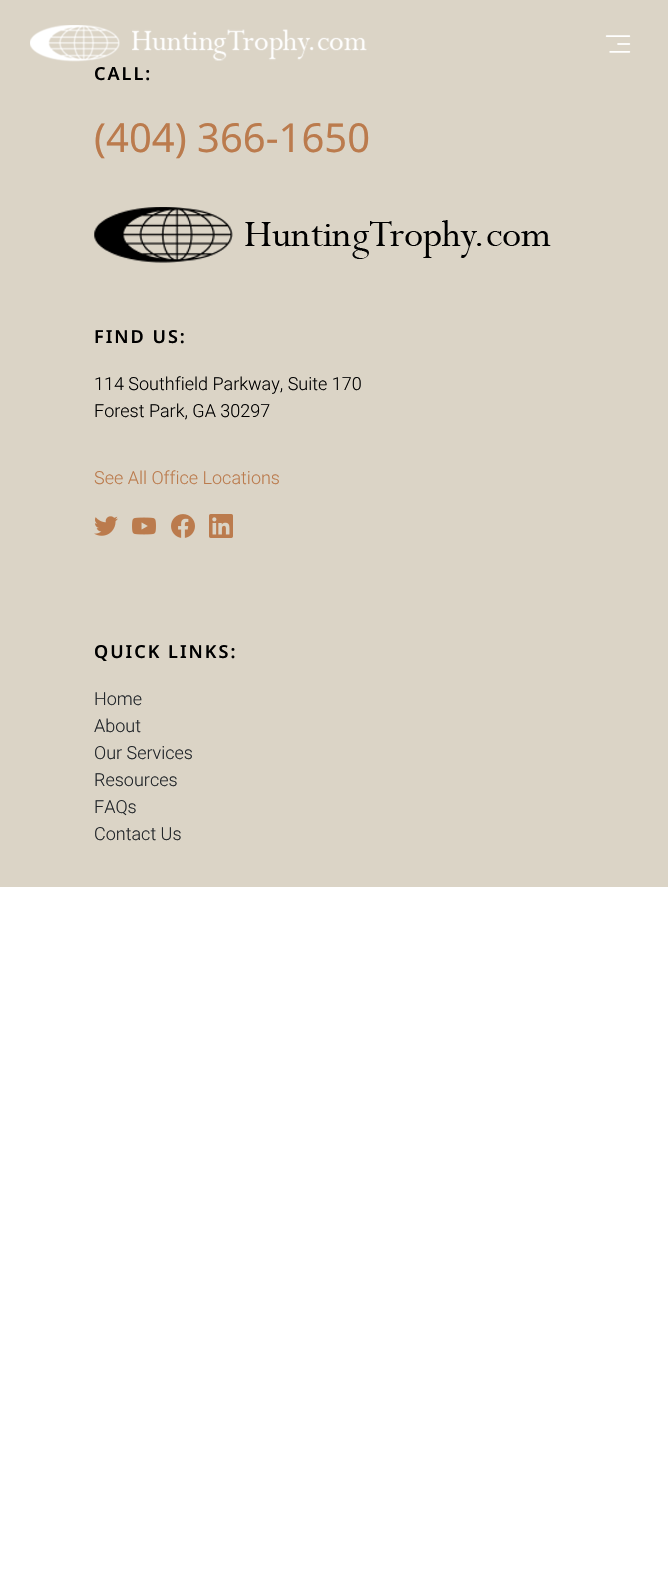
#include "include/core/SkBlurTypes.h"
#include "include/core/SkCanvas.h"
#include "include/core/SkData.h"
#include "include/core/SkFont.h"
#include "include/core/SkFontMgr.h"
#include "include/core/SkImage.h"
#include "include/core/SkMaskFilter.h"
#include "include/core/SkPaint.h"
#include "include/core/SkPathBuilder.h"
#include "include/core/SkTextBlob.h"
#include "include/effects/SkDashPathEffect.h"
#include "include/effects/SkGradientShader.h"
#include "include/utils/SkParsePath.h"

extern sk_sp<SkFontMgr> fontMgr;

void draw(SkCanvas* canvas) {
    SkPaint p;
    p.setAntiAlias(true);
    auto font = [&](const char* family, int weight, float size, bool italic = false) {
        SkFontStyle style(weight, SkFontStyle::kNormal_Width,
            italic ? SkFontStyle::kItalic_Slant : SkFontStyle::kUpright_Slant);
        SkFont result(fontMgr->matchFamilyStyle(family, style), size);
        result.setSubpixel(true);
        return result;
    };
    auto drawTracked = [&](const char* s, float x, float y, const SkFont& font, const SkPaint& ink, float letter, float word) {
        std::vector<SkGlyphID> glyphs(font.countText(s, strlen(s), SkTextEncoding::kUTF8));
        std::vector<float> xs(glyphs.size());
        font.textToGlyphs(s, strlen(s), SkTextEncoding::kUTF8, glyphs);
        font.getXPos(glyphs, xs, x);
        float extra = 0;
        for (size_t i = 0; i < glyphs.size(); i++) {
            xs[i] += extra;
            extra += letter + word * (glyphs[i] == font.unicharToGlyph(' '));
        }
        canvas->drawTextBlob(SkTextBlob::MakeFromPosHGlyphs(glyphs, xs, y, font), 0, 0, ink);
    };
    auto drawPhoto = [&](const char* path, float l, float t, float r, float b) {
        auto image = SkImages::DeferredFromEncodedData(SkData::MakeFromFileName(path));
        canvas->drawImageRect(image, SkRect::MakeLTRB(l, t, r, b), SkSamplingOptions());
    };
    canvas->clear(0xFFFFFFFF);
    p.setColor(0xFFDBD4C6);
    canvas->drawRect(SkRect::MakeLTRB(0, 0, 668, 887), p);
    drawPhoto("media/1.png", 30, 25, 367, 62);
    drawPhoto("media/2.png", 605, 35, 631, 53);
    auto font1 = font("Noto Sans", 600, 18);
    p.setColor(0xFF000000);
    drawTracked("CALL:", 94, 80, font1, p, 2, 0);
    auto font2 = font("Noto Sans", 400, 40);
    p.setColor(0xFFBB7B4D);
    canvas->drawString("(404) 366-1650", 94, 152, font2, p);
    drawPhoto("media/3.png", 94, 207, 551, 263);
    p.setColor(0xFF000000);
    drawTracked("FIND US:", 94, 343, font1, p, 2, 0);
    auto font3 = font("Roboto", 300, 18);
    canvas->drawString("114 Southfield Parkway, Suite 170", 94, 390, font3, p);
    canvas->drawString("Forest Park, GA 30297", 94, 417, font3, p);
    p.setColor(0xFFBB7B4D);
    canvas->drawString("See All Office Locations", 94, 484, font3, p);
    drawPhoto("media/4.png", 94, 516, 118, 536);
    drawPhoto("media/5.png", 132, 517, 156, 535);
    drawPhoto("media/6.png", 171, 514, 195, 538);
    drawPhoto("media/7.png", 209, 514, 233, 538);
    p.setColor(0xFF000000);
    drawTracked("QUICK LINKS:", 94, 658, font1, p, 2, 0);
    p.setColor(0xFF212529);
    {
        const struct { const char* s; float x, y; } items[] = {
            {"Home", 94, 705},
            {"About", 94, 732},
            {"Our Services", 94, 759},
            {"Resources", 94, 786},
            {"FAQs", 94, 813},
            {"Contact Us", 94, 840},
        };
        for (auto [s, x, y] : items) {
            canvas->drawString(s, x, y, font3, p);
        }
    }
}
